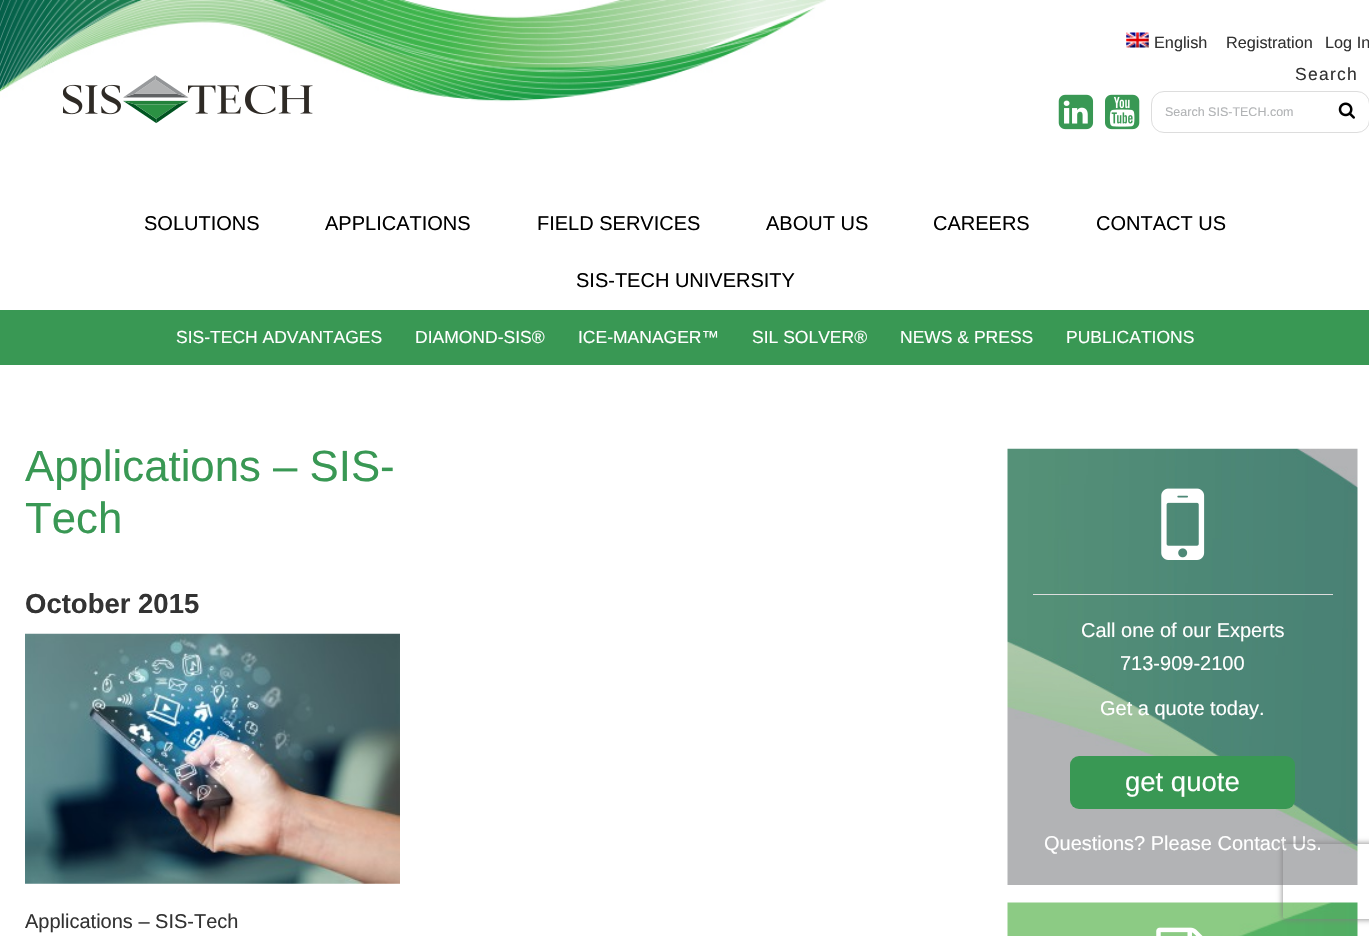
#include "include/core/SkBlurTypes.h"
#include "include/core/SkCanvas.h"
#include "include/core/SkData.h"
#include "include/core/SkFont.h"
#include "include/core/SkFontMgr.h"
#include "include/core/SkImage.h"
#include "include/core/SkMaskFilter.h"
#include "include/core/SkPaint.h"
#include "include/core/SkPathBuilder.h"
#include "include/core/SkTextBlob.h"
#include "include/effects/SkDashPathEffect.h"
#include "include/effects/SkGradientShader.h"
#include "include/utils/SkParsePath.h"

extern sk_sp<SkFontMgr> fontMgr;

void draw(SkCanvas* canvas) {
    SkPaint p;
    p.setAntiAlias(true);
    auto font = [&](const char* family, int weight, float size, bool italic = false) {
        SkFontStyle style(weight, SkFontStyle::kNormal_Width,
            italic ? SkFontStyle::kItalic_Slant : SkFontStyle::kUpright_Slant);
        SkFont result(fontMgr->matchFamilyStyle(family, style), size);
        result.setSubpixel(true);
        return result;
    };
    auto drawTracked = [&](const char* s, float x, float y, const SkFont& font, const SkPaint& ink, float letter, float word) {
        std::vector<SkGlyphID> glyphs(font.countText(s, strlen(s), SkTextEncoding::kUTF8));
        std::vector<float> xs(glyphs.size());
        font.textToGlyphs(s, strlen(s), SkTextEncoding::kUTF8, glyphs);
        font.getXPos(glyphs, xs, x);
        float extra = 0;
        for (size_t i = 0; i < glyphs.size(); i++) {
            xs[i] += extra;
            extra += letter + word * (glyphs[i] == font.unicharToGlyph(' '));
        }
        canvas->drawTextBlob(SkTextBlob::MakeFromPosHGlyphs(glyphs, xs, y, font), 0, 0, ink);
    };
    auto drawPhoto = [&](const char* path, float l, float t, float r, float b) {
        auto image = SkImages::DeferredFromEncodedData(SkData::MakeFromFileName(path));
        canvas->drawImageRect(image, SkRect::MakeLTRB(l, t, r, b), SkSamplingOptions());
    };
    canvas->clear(0xFFFFFFFF);
    drawPhoto("media/1.png", 0, 0, 826, 102);
    drawPhoto("media/2.png", 63, 75, 313, 124);
    drawPhoto("media/3.png", 1126, 32, 1149, 48);
    auto font1 = font("Liberation Sans", 400, 16.25f);
    p.setColor(0xFF333333);
    {
        const struct { const char* s; float x, y; } items[] = {
            {"English", 1154, 48},
            {"Registration", 1226, 48},
            {"Log In", 1325, 48},
        };
        for (auto [s, x, y] : items) {
            canvas->drawString(s, x, y, font1, p);
        }
    }
    drawPhoto("media/4.png", 1058, 94, 1094, 130);
    drawPhoto("media/5.png", 1105, 94, 1140, 130);
    auto font2 = font("Liberation Sans", 400, 17.5f);
    drawTracked("Search", 1295, 80, font2, p, 1.25f, 0);
    p.setStyle(SkPaint::kStroke_Style);
    p.setStrokeWidth(1);
    p.setColor(0xFFDDDDDD);
    canvas->drawRoundRect(SkRect::MakeLTRB(1151.5f, 91.5f, 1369.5f, 132.5f), 12.5f, 12.5f, p);
    auto font3 = font("Liberation Sans", 400, 12.5f);
    p.setStyle(SkPaint::kFill_Style);
    p.setColor(0xFFB1B3B5);
    canvas->drawString("Search SIS-TECH.com", 1165, 116, font3, p);
    drawPhoto("media/6.png", 1338, 102, 1355, 119);
    auto font4 = font("Liberation Sans", 400, 20);
    p.setColor(0xFF000000);
    {
        const struct { const char* s; float x, y; } items[] = {
            {"SOLUTIONS", 144, 230},
            {"APPLICATIONS", 325, 230},
            {"FIELD SERVICES", 537, 230},
            {"ABOUT US", 766, 230},
            {"CAREERS", 933, 230},
            {"CONTACT US", 1096, 230},
            {"SIS-TECH UNIVERSITY", 576, 287},
        };
        for (auto [s, x, y] : items) {
            canvas->drawString(s, x, y, font4, p);
        }
    }
    p.setColor(0xFF399854);
    canvas->drawRect(SkRect::MakeLTRB(0, 310, 1369, 365), p);
    p.setColor(0xFFFFFFFF);
    {
        const struct { const char* s; float x, y; } items[] = {
            {"SIS-TECH ADVANTAGES", 176, 343},
            {"DIAMOND-SIS®", 415, 343},
            {"ICE-MANAGER™", 578, 343},
            {"SIL SOLVER®", 752, 343},
            {"NEWS & PRESS", 900, 343},
            {"PUBLICATIONS", 1066, 343},
        };
        for (auto [s, x, y] : items) {
            canvas->drawString(s, x, y, font2, p);
        }
    }
    auto font5 = font("Liberation Sans", 400, 43.75f);
    p.setColor(0xFF399854);
    canvas->drawString("Applications – SIS-", 25, 481, font5, p);
    canvas->drawString("Tech", 25, 533, font5, p);
    auto font6 = font("Liberation Sans", 700, 27.5f);
    p.setColor(0xFF333333);
    canvas->drawString("October 2015", 25, 613, font6, p);
    drawPhoto("media/7.png", 25, 633, 400, 884);
    canvas->drawString("Applications – SIS-Tech", 25, 928, font4, p);
    drawPhoto("media/8.png", 1007, 448, 1358, 885);
    drawPhoto("media/9.png", 1161, 488, 1205, 560);
    p.setColor(0xFFDDDDDD);
    canvas->drawRect(SkRect::MakeLTRB(1033, 594, 1333, 595), p);
    p.setColor(0xFFFFFFFF);
    {
        const struct { const char* s; float x, y; } items[] = {
            {"Call one of our Experts", 1081, 637},
            {"713-909-2100", 1120, 670},
            {"Get a quote today.", 1100, 715},
        };
        for (auto [s, x, y] : items) {
            canvas->drawString(s, x, y, font4, p);
        }
    }
    p.setColor(0xFF399854);
    canvas->drawRoundRect(SkRect::MakeLTRB(1070, 756, 1295, 809), 9, 9, p);
    auto font7 = font("Liberation Sans", 400, 27.5f);
    p.setColor(0xFFFFFFFF);
    canvas->drawString("get quote", 1125, 791, font7, p);
    canvas->drawString("Questions? Please Contact Us.", 1044, 850, font4, p);
    drawPhoto("media/10.png", 1007, 902, 1358, 936);
    drawPhoto("media/11.png", 1156, 927, 1203, 936);
    canvas->save();
    canvas->clipPath(SkPathBuilder(SkPathFillType::kEvenOdd).moveTo(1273, 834).lineTo(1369, 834).lineTo(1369, 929).lineTo(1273, 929).close().moveTo(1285.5f, 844).lineTo(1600.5f, 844).cubicTo(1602, 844, 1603, 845, 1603, 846.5f).lineTo(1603, 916.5f).cubicTo(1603, 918, 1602, 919, 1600.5f, 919).lineTo(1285.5f, 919).cubicTo(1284, 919, 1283, 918, 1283, 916.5f).lineTo(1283, 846.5f).cubicTo(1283, 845, 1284, 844, 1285.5f, 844).close().detach(), true);
    p.setColor(0xFF808080);
    p.setMaskFilter(SkMaskFilter::MakeBlur(kNormal_SkBlurStyle, 3));
    canvas->drawRoundRect(SkRect::MakeLTRB(1283, 844, 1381, 919), 2.5f, 2.5f, p);
    p.setMaskFilter(nullptr);
    canvas->restore();
}
